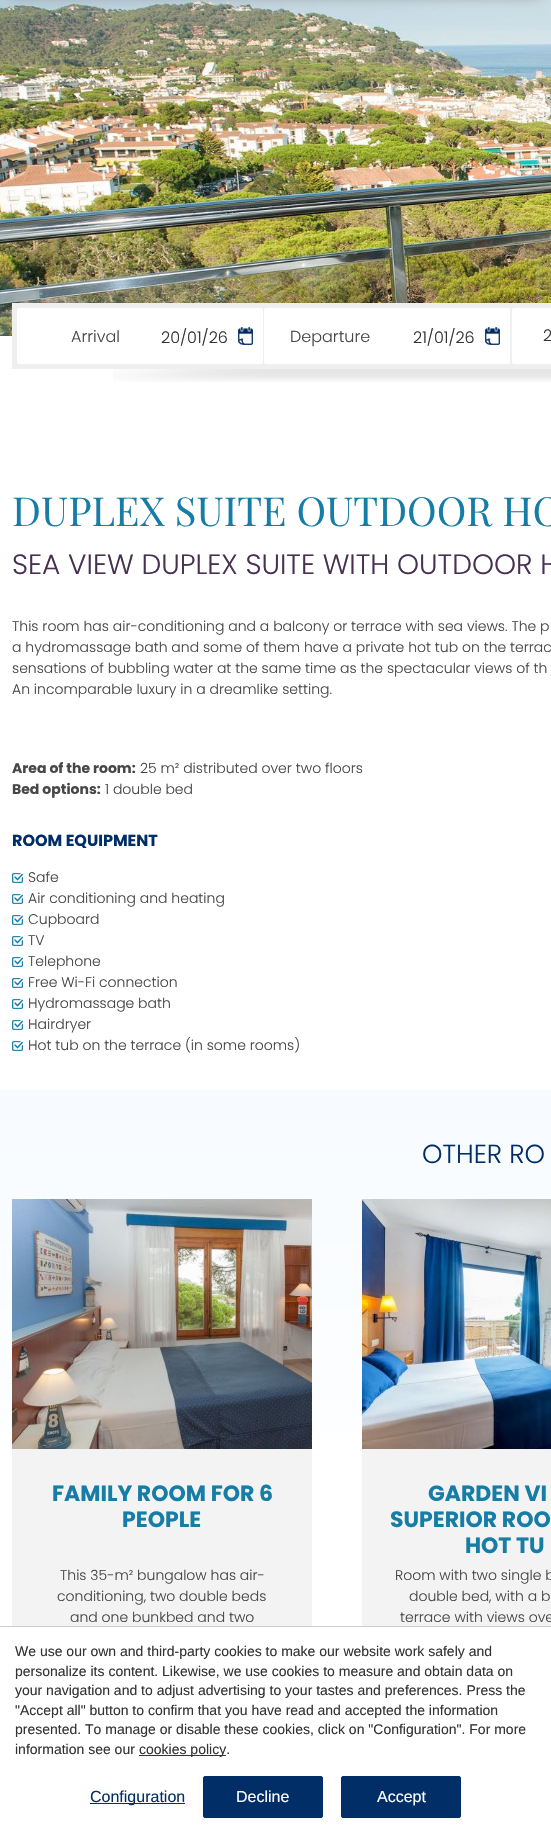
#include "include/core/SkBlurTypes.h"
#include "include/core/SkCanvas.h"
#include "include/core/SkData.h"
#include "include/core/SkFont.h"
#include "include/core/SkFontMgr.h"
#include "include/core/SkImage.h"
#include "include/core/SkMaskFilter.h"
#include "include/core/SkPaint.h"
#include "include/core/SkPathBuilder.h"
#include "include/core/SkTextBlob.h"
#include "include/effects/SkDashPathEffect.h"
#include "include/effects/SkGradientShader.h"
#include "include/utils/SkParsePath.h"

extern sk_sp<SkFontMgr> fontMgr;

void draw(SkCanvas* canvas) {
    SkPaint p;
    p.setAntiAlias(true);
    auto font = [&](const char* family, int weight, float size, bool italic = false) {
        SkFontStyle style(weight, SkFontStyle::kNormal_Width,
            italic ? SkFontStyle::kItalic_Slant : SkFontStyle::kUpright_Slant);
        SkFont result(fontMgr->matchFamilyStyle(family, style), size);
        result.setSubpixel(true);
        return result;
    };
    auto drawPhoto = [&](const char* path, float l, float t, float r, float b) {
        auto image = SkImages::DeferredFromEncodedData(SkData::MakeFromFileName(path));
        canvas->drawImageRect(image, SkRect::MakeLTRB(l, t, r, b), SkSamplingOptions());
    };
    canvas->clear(0xFFFFFFFF);
    drawPhoto("media/1.png", 0, 0, 551, 336);
    p.setColor(0xFF888888);
    p.setMaskFilter(SkMaskFilter::MakeBlur(kNormal_SkBlurStyle, 7.5f));
    canvas->drawRect(SkRect::MakeLTRB(10, -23, 541, -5), p);
    p.setMaskFilter(nullptr);
    drawPhoto("media/2.png", 113, 369, 551, 382);
    p.setColor(0xFFEFEFEF);
    canvas->drawRect(SkRect::MakeLTRB(12, 303, 551, 369), p);
    p.setColor(0xFFFFFFFF);
    canvas->drawRoundRect(SkRect::MakeLTRB(17, 308, 263, 364), 2, 2, p);
    auto font1 = font("Poppins", 300, 16);
    p.setColor(0xFF474747);
    canvas->drawString("Arrival", 71, 342, font1, p);
    drawPhoto("media/3.png", 238, 327, 253, 345);
    p.setColor(0xFF333333);
    canvas->drawString("20/01/26", 161, 343, font1, p);
    p.setColor(0xFFFFFFFF);
    canvas->drawRoundRect(SkRect::MakeLTRB(264, 308, 510, 364), 2, 2, p);
    p.setColor(0xFF474747);
    canvas->drawString("Departure", 290, 342, font1, p);
    drawPhoto("media/3.png", 485, 327, 500, 345);
    p.setColor(0xFF333333);
    canvas->drawString("21/01/26", 413, 343, font1, p);
    p.setColor(0xFFFFFFFF);
    canvas->drawRoundRect(SkRect::MakeLTRB(512, 308, 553, 364), 2, 2, p);
    p.setColor(0xFF333333);
    canvas->drawString("2", 543, 341, font1, p);
    auto font2 = font("Playfair Display SC", 400, 40);
    p.setColor(0xFF167DA6);
    canvas->drawString("DUPLEX SUITE OUTDOOR HO", 12, 526, font2, p);
    auto font3 = font("Poppins", 300, 28);
    p.setColor(0xFF473052);
    canvas->drawString("SEA VIEW DUPLEX SUITE WITH OUTDOOR H", 12, 574, font3, p);
    auto font4 = font("Poppins", 300, 14);
    p.setColor(0xFF474747);
    {
        const struct { const char* s; float x, y; } items[] = {
            {"This room has air-conditioning and a balcony or terrace with sea views. The p", 12, 631},
            {"a hydromassage bath and some of them have a private hot tub on the terrac", 12, 652},
            {"sensations of bubbling water at the same time as the spectacular views of th", 12, 673},
            {"An incomparable luxury in a dreamlike setting.", 12, 694},
        };
        for (auto [s, x, y] : items) {
            canvas->drawString(s, x, y, font4, p);
        }
    }
    auto font5 = font("Poppins", 700, 14);
    canvas->drawString("Area of the room:", 12, 773, font5, p);
    canvas->drawString("25 m² distributed over two floors", 140, 773, font4, p);
    canvas->drawString("Bed options:", 12, 794, font5, p);
    canvas->drawString("1 double bed", 105, 794, font4, p);
    auto font6 = font("Poppins", 700, 16);
    p.setColor(0xFF012E67);
    canvas->drawString("ROOM EQUIPMENT", 12, 846, font6, p);
    drawPhoto("media/4.png", 12, 873, 23, 883);
    p.setColor(0xFF474747);
    canvas->drawString("Safe", 28, 882, font4, p);
    drawPhoto("media/4.png", 12, 894, 23, 904);
    canvas->drawString("Air conditioning and heating", 28, 903, font4, p);
    drawPhoto("media/4.png", 12, 915, 23, 925);
    canvas->drawString("Cupboard", 28, 924, font4, p);
    drawPhoto("media/4.png", 12, 936, 23, 946);
    canvas->drawString("TV", 28, 945, font4, p);
    drawPhoto("media/4.png", 12, 957, 23, 967);
    canvas->drawString("Telephone", 28, 966, font4, p);
    drawPhoto("media/4.png", 12, 978, 23, 988);
    canvas->drawString("Free Wi-Fi connection", 28, 987, font4, p);
    drawPhoto("media/4.png", 12, 999, 23, 1009);
    canvas->drawString("Hydromassage bath", 28, 1008, font4, p);
    drawPhoto("media/4.png", 12, 1020, 23, 1030);
    canvas->drawString("Hairdryer", 28, 1029, font4, p);
    drawPhoto("media/4.png", 12, 1041, 23, 1051);
    canvas->drawString("Hot tub on the terrace (in some rooms)", 28, 1050, font4, p);
    {
        const SkColor colors[] = {0xFFF7FBFF, 0xFFFFFFFF, 0xFFFFFFFF};
        const float stops[] = {0, 0.41f, 1};
        const SkPoint ends[] = {{512, 1090}, {512, 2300}};
        p.setShader(SkGradientShader::MakeLinear(ends, colors, stops, 3, SkTileMode::kClamp));
        p.setAlpha(255);
    }
    canvas->drawRect(SkRect::MakeLTRB(0, 1090, 551, 1431), p);
    auto font7 = font("Poppins", 300, 26);
    p.setShader(nullptr);
    p.setColor(0xFF012E67);
    canvas->drawString("OTHER RO", 422, 1163, font7, p);
    p.setColor(0xFFF3F3F3);
    canvas->drawRect(SkRect::MakeLTRB(12, 1449, 312, 1626), p);
    drawPhoto("media/5.png", 12, 1199, 312, 1449);
    auto font8 = font("Poppins", 700, 22);
    p.setColor(0xFF167DA6);
    canvas->drawString("FAMILY ROOM FOR 6", 52, 1501, font8, p);
    canvas->drawString("PEOPLE", 122, 1527, font8, p);
    p.setColor(0xFF474747);
    {
        const struct { const char* s; float x, y; } items[] = {
            {"This 35-m² bungalow has air-", 60, 1580},
            {"conditioning, two double beds", 57, 1601},
            {"and one bunkbed and two", 70, 1622},
        };
        for (auto [s, x, y] : items) {
            canvas->drawString(s, x, y, font4, p);
        }
    }
    p.setColor(0xFFF3F3F3);
    canvas->drawRect(SkRect::MakeLTRB(362, 1449, 551, 1626), p);
    drawPhoto("media/6.png", 362, 1199, 551, 1449);
    p.setColor(0xFF167DA6);
    {
        const struct { const char* s; float x, y; } items[] = {
            {"GARDEN VI", 428, 1501},
            {"SUPERIOR ROO", 390, 1527},
            {"HOT TU", 465, 1553},
        };
        for (auto [s, x, y] : items) {
            canvas->drawString(s, x, y, font8, p);
        }
    }
    p.setColor(0xFF474747);
    {
        const struct { const char* s; float x, y; } items[] = {
            {"Room with two single b", 395, 1580},
            {"double bed, with a b", 409, 1601},
            {"terrace with views ove", 400, 1622},
        };
        for (auto [s, x, y] : items) {
            canvas->drawString(s, x, y, font4, p);
        }
    }
    p.setColor(0xFFCCCCCC);
    canvas->drawRect(SkRect::MakeLTRB(0, 1626, 551, 1627), p);
    auto font9 = font("Liberation Sans", 400, 14);
    p.setColor(0xFF333333);
    {
        const struct { const char* s; float x, y; } items[] = {
            {"We use our own and third-party cookies to make our website work safely and", 15, 1656},
            {"personalize its content. Likewise, we use cookies to measure and obtain data on", 15, 1676},
            {"your navigation and to adjust advertising to your tastes and preferences. Press the", 15, 1695},
            {"\"Accept all\" button to confirm that you have read and accepted the information", 15, 1715},
            {"presented. To manage or disable these cookies, click on \"Configuration\". For more", 15, 1734},
            {"information see our", 15, 1754},
        };
        for (auto [s, x, y] : items) {
            canvas->drawString(s, x, y, font9, p);
        }
    }
    canvas->drawRect(SkRect::MakeLTRB(139, 1755, 226, 1756), p);
    canvas->drawString("cookies policy.", 139, 1754, font9, p);
    p.setColor(0xFF012E67);
    canvas->drawRect(SkRect::MakeLTRB(90, 1803, 185, 1804), p);
    auto font10 = font("Liberation Sans", 400, 16);
    canvas->drawString("Configuration", 90, 1802, font10, p);
    canvas->drawRoundRect(SkRect::MakeLTRB(203.5f, 1776.5f, 322.5f, 1817.5f), 1.5f, 1.5f, p);
    p.setStyle(SkPaint::kStroke_Style);
    p.setStrokeWidth(1);
    canvas->drawRoundRect(SkRect::MakeLTRB(203.5f, 1776.5f, 322.5f, 1817.5f), 1.5f, 1.5f, p);
    p.setStyle(SkPaint::kFill_Style);
    p.setColor(0xFFFFFFFF);
    canvas->drawString("Decline", 236, 1802, font10, p);
    p.setColor(0xFF012E67);
    canvas->drawRoundRect(SkRect::MakeLTRB(341.5f, 1776.5f, 460.5f, 1817.5f), 1.5f, 1.5f, p);
    p.setStyle(SkPaint::kStroke_Style);
    canvas->drawRoundRect(SkRect::MakeLTRB(341.5f, 1776.5f, 460.5f, 1817.5f), 1.5f, 1.5f, p);
    p.setStyle(SkPaint::kFill_Style);
    p.setColor(0xFFFFFFFF);
    canvas->drawString("Accept", 377, 1802, font10, p);
}
